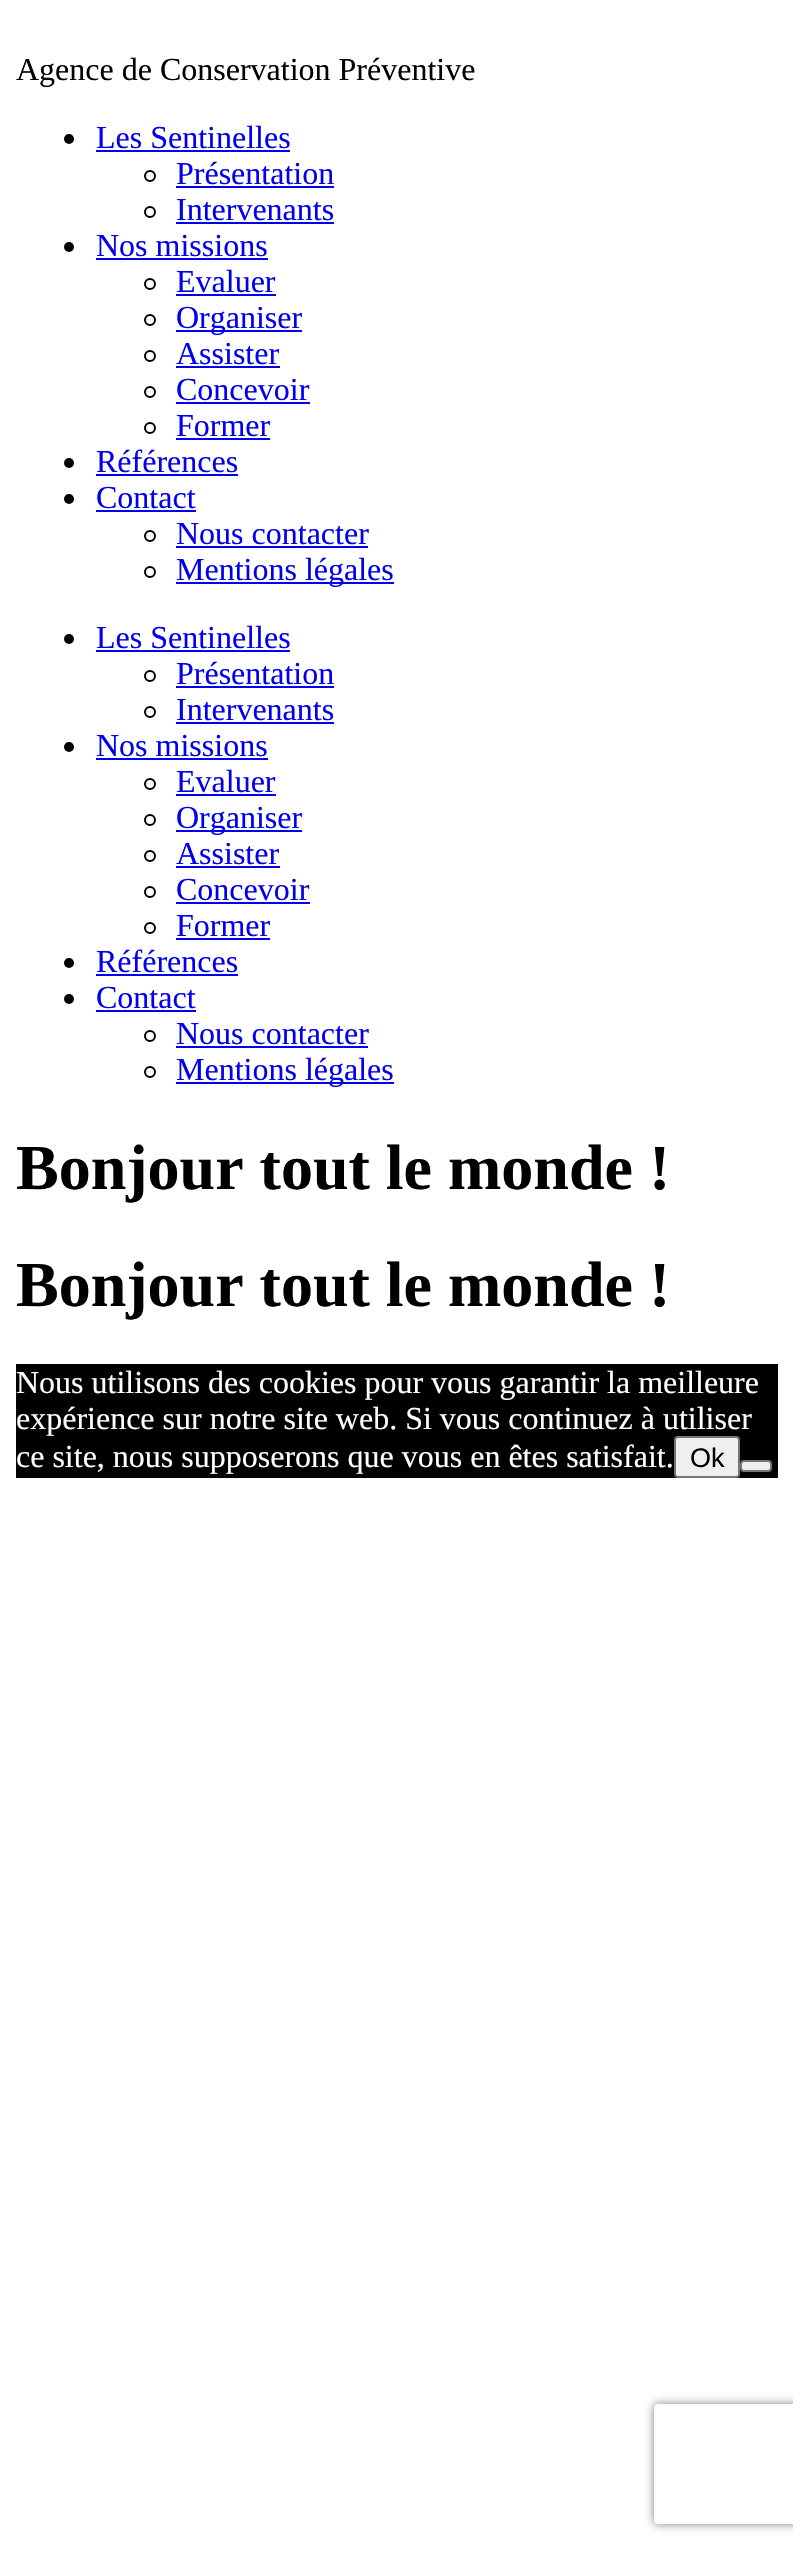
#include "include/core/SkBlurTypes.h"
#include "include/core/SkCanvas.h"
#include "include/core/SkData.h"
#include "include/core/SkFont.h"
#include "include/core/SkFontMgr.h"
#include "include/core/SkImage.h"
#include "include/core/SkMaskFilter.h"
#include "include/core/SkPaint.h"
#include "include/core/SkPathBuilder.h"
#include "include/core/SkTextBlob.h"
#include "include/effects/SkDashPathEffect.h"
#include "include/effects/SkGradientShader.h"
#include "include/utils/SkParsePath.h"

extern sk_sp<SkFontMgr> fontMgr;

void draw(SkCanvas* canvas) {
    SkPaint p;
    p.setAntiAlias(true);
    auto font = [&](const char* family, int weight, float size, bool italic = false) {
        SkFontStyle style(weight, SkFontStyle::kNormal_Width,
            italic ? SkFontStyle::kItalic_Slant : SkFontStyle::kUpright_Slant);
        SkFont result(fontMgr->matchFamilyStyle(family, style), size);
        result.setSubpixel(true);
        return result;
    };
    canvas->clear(0xFFFFFFFF);
    auto font1 = font("Liberation Serif", 400, 32);
    p.setColor(0xFF000000);
    canvas->drawString("Agence de Conservation Préventive", 16, 80, font1, p);
    canvas->drawCircle(69, 139, 5, p);
    p.setColor(0xFF0000EE);
    canvas->drawString("Les Sentinelles", 96, 148, font1, p);
    canvas->drawRect(SkRect::MakeLTRB(96, 150, 290, 152), p);
    p.setStyle(SkPaint::kStroke_Style);
    p.setStrokeWidth(2);
    p.setColor(0xFF000000);
    canvas->drawCircle(150, 176, 5, p);
    p.setStyle(SkPaint::kFill_Style);
    p.setColor(0xFF0000EE);
    canvas->drawString("Présentation", 176, 184, font1, p);
    canvas->drawRect(SkRect::MakeLTRB(176, 186, 334, 188), p);
    p.setStyle(SkPaint::kStroke_Style);
    p.setColor(0xFF000000);
    canvas->drawCircle(150, 212, 5, p);
    p.setStyle(SkPaint::kFill_Style);
    p.setColor(0xFF0000EE);
    canvas->drawString("Intervenants", 176, 220, font1, p);
    canvas->drawRect(SkRect::MakeLTRB(176, 222, 334, 224), p);
    p.setColor(0xFF000000);
    canvas->drawCircle(69, 247, 5, p);
    p.setColor(0xFF0000EE);
    canvas->drawString("Nos missions", 96, 256, font1, p);
    canvas->drawRect(SkRect::MakeLTRB(96, 258, 268, 260), p);
    p.setStyle(SkPaint::kStroke_Style);
    p.setColor(0xFF000000);
    canvas->drawCircle(150, 284, 5, p);
    p.setStyle(SkPaint::kFill_Style);
    p.setColor(0xFF0000EE);
    canvas->drawString("Evaluer", 176, 292, font1, p);
    canvas->drawRect(SkRect::MakeLTRB(176, 294, 276, 296), p);
    p.setStyle(SkPaint::kStroke_Style);
    p.setColor(0xFF000000);
    canvas->drawCircle(150, 320, 5, p);
    p.setStyle(SkPaint::kFill_Style);
    p.setColor(0xFF0000EE);
    canvas->drawRect(SkRect::MakeLTRB(176, 330, 302, 332), p);
    canvas->drawString("Organiser", 176, 328, font1, p);
    p.setStyle(SkPaint::kStroke_Style);
    p.setColor(0xFF000000);
    canvas->drawCircle(150, 356, 5, p);
    p.setStyle(SkPaint::kFill_Style);
    p.setColor(0xFF0000EE);
    canvas->drawString("Assister", 176, 364, font1, p);
    canvas->drawRect(SkRect::MakeLTRB(176, 366, 280, 368), p);
    p.setStyle(SkPaint::kStroke_Style);
    p.setColor(0xFF000000);
    canvas->drawCircle(150, 392, 5, p);
    p.setStyle(SkPaint::kFill_Style);
    p.setColor(0xFF0000EE);
    canvas->drawString("Concevoir", 176, 400, font1, p);
    canvas->drawRect(SkRect::MakeLTRB(176, 402, 310, 404), p);
    p.setStyle(SkPaint::kStroke_Style);
    p.setColor(0xFF000000);
    canvas->drawCircle(150, 428, 5, p);
    p.setStyle(SkPaint::kFill_Style);
    p.setColor(0xFF0000EE);
    canvas->drawString("Former", 176, 436, font1, p);
    canvas->drawRect(SkRect::MakeLTRB(176, 438, 270, 440), p);
    p.setColor(0xFF000000);
    canvas->drawCircle(69, 463, 5, p);
    p.setColor(0xFF0000EE);
    canvas->drawString("Références", 96, 472, font1, p);
    canvas->drawRect(SkRect::MakeLTRB(96, 474, 238, 476), p);
    p.setColor(0xFF000000);
    canvas->drawCircle(69, 499, 5, p);
    p.setColor(0xFF0000EE);
    canvas->drawString("Contact", 96, 508, font1, p);
    canvas->drawRect(SkRect::MakeLTRB(96, 510, 196, 512), p);
    p.setStyle(SkPaint::kStroke_Style);
    p.setColor(0xFF000000);
    canvas->drawCircle(150, 536, 5, p);
    p.setStyle(SkPaint::kFill_Style);
    p.setColor(0xFF0000EE);
    canvas->drawString("Nous contacter", 176, 544, font1, p);
    canvas->drawRect(SkRect::MakeLTRB(176, 546, 368, 548), p);
    p.setStyle(SkPaint::kStroke_Style);
    p.setColor(0xFF000000);
    canvas->drawCircle(150, 572, 5, p);
    p.setStyle(SkPaint::kFill_Style);
    p.setColor(0xFF0000EE);
    canvas->drawRect(SkRect::MakeLTRB(176, 582, 394, 584), p);
    canvas->drawString("Mentions légales", 176, 580, font1, p);
    p.setColor(0xFF000000);
    canvas->drawCircle(69, 639, 5, p);
    p.setColor(0xFF0000EE);
    canvas->drawString("Les Sentinelles", 96, 648, font1, p);
    canvas->drawRect(SkRect::MakeLTRB(96, 650, 290, 652), p);
    p.setStyle(SkPaint::kStroke_Style);
    p.setColor(0xFF000000);
    canvas->drawCircle(150, 676, 5, p);
    p.setStyle(SkPaint::kFill_Style);
    p.setColor(0xFF0000EE);
    canvas->drawString("Présentation", 176, 684, font1, p);
    canvas->drawRect(SkRect::MakeLTRB(176, 686, 334, 688), p);
    p.setStyle(SkPaint::kStroke_Style);
    p.setColor(0xFF000000);
    canvas->drawCircle(150, 712, 5, p);
    p.setStyle(SkPaint::kFill_Style);
    p.setColor(0xFF0000EE);
    canvas->drawString("Intervenants", 176, 720, font1, p);
    canvas->drawRect(SkRect::MakeLTRB(176, 722, 334, 724), p);
    p.setColor(0xFF000000);
    canvas->drawCircle(69, 747, 5, p);
    p.setColor(0xFF0000EE);
    canvas->drawString("Nos missions", 96, 756, font1, p);
    canvas->drawRect(SkRect::MakeLTRB(96, 758, 268, 760), p);
    p.setStyle(SkPaint::kStroke_Style);
    p.setColor(0xFF000000);
    canvas->drawCircle(150, 784, 5, p);
    p.setStyle(SkPaint::kFill_Style);
    p.setColor(0xFF0000EE);
    canvas->drawString("Evaluer", 176, 792, font1, p);
    canvas->drawRect(SkRect::MakeLTRB(176, 794, 276, 796), p);
    p.setStyle(SkPaint::kStroke_Style);
    p.setColor(0xFF000000);
    canvas->drawCircle(150, 820, 5, p);
    p.setStyle(SkPaint::kFill_Style);
    p.setColor(0xFF0000EE);
    canvas->drawRect(SkRect::MakeLTRB(176, 830, 302, 832), p);
    canvas->drawString("Organiser", 176, 828, font1, p);
    p.setStyle(SkPaint::kStroke_Style);
    p.setColor(0xFF000000);
    canvas->drawCircle(150, 856, 5, p);
    p.setStyle(SkPaint::kFill_Style);
    p.setColor(0xFF0000EE);
    canvas->drawString("Assister", 176, 864, font1, p);
    canvas->drawRect(SkRect::MakeLTRB(176, 866, 280, 868), p);
    p.setStyle(SkPaint::kStroke_Style);
    p.setColor(0xFF000000);
    canvas->drawCircle(150, 892, 5, p);
    p.setStyle(SkPaint::kFill_Style);
    p.setColor(0xFF0000EE);
    canvas->drawString("Concevoir", 176, 900, font1, p);
    canvas->drawRect(SkRect::MakeLTRB(176, 902, 310, 904), p);
    p.setStyle(SkPaint::kStroke_Style);
    p.setColor(0xFF000000);
    canvas->drawCircle(150, 928, 5, p);
    p.setStyle(SkPaint::kFill_Style);
    p.setColor(0xFF0000EE);
    canvas->drawString("Former", 176, 936, font1, p);
    canvas->drawRect(SkRect::MakeLTRB(176, 938, 270, 940), p);
    p.setColor(0xFF000000);
    canvas->drawCircle(69, 963, 5, p);
    p.setColor(0xFF0000EE);
    canvas->drawString("Références", 96, 972, font1, p);
    canvas->drawRect(SkRect::MakeLTRB(96, 974, 238, 976), p);
    p.setColor(0xFF000000);
    canvas->drawCircle(69, 999, 5, p);
    p.setColor(0xFF0000EE);
    canvas->drawString("Contact", 96, 1008, font1, p);
    canvas->drawRect(SkRect::MakeLTRB(96, 1010, 196, 1012), p);
    p.setStyle(SkPaint::kStroke_Style);
    p.setColor(0xFF000000);
    canvas->drawCircle(150, 1036, 5, p);
    p.setStyle(SkPaint::kFill_Style);
    p.setColor(0xFF0000EE);
    canvas->drawString("Nous contacter", 176, 1044, font1, p);
    canvas->drawRect(SkRect::MakeLTRB(176, 1046, 368, 1048), p);
    p.setStyle(SkPaint::kStroke_Style);
    p.setColor(0xFF000000);
    canvas->drawCircle(150, 1072, 5, p);
    p.setStyle(SkPaint::kFill_Style);
    p.setColor(0xFF0000EE);
    canvas->drawRect(SkRect::MakeLTRB(176, 1082, 394, 1084), p);
    canvas->drawString("Mentions légales", 176, 1080, font1, p);
    auto font2 = font("Liberation Serif", 700, 64);
    p.setColor(0xFF000000);
    canvas->drawString("Bonjour tout le monde !", 16, 1189, font2, p);
    canvas->drawString("Bonjour tout le monde !", 16, 1306, font2, p);
    canvas->drawRect(SkRect::MakeLTRB(16, 1364, 778, 1478), p);
    p.setColor(0xFFFFFFFF);
    {
        const struct { const char* s; float x, y; } items[] = {
            {"Nous utilisons des cookies pour vous garantir la meilleure", 16, 1393},
            {"expérience sur notre site web. Si vous continuez à utiliser", 16, 1429},
            {"ce site, nous supposerons que vous en êtes satisfait.", 16, 1467},
        };
        for (auto [s, x, y] : items) {
            canvas->drawString(s, x, y, font1, p);
        }
    }
    p.setColor(0xFFEFEFEF);
    canvas->drawRoundRect(SkRect::MakeLTRB(675, 1437, 739, 1477), 3, 3, p);
    p.setStyle(SkPaint::kStroke_Style);
    p.setColor(0xFF767676);
    canvas->drawRoundRect(SkRect::MakeLTRB(675, 1437, 739, 1477), 3, 3, p);
    auto font3 = font("Liberation Sans", 400, 27);
    p.setStyle(SkPaint::kFill_Style);
    p.setColor(0xFF000000);
    canvas->drawString("Ok", 690, 1467, font3, p);
    p.setColor(0xFFEFEFEF);
    canvas->drawRoundRect(SkRect::MakeLTRB(741, 1461, 771, 1471), 3, 3, p);
    p.setStyle(SkPaint::kStroke_Style);
    p.setColor(0xFF767676);
    canvas->drawRoundRect(SkRect::MakeLTRB(741, 1461, 771, 1471), 3, 3, p);
    canvas->save();
    canvas->clipPath(SkPathBuilder(SkPathFillType::kEvenOdd).moveTo(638, 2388).lineTo(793, 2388).lineTo(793, 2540).lineTo(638, 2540).close().moveTo(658, 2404).lineTo(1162, 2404).cubicTo(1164, 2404, 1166, 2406, 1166, 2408).lineTo(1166, 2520).cubicTo(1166, 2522, 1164, 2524, 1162, 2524).lineTo(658, 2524).cubicTo(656, 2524, 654, 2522, 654, 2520).lineTo(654, 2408).cubicTo(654, 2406, 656, 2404, 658, 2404).close().detach(), true);
    p.setStyle(SkPaint::kFill_Style);
    p.setColor(0xFF808080);
    p.setMaskFilter(SkMaskFilter::MakeBlur(kNormal_SkBlurStyle, 5));
    canvas->drawRoundRect(SkRect::MakeLTRB(654, 2404, 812, 2524), 4, 4, p);
    p.setMaskFilter(nullptr);
    canvas->restore();
}
